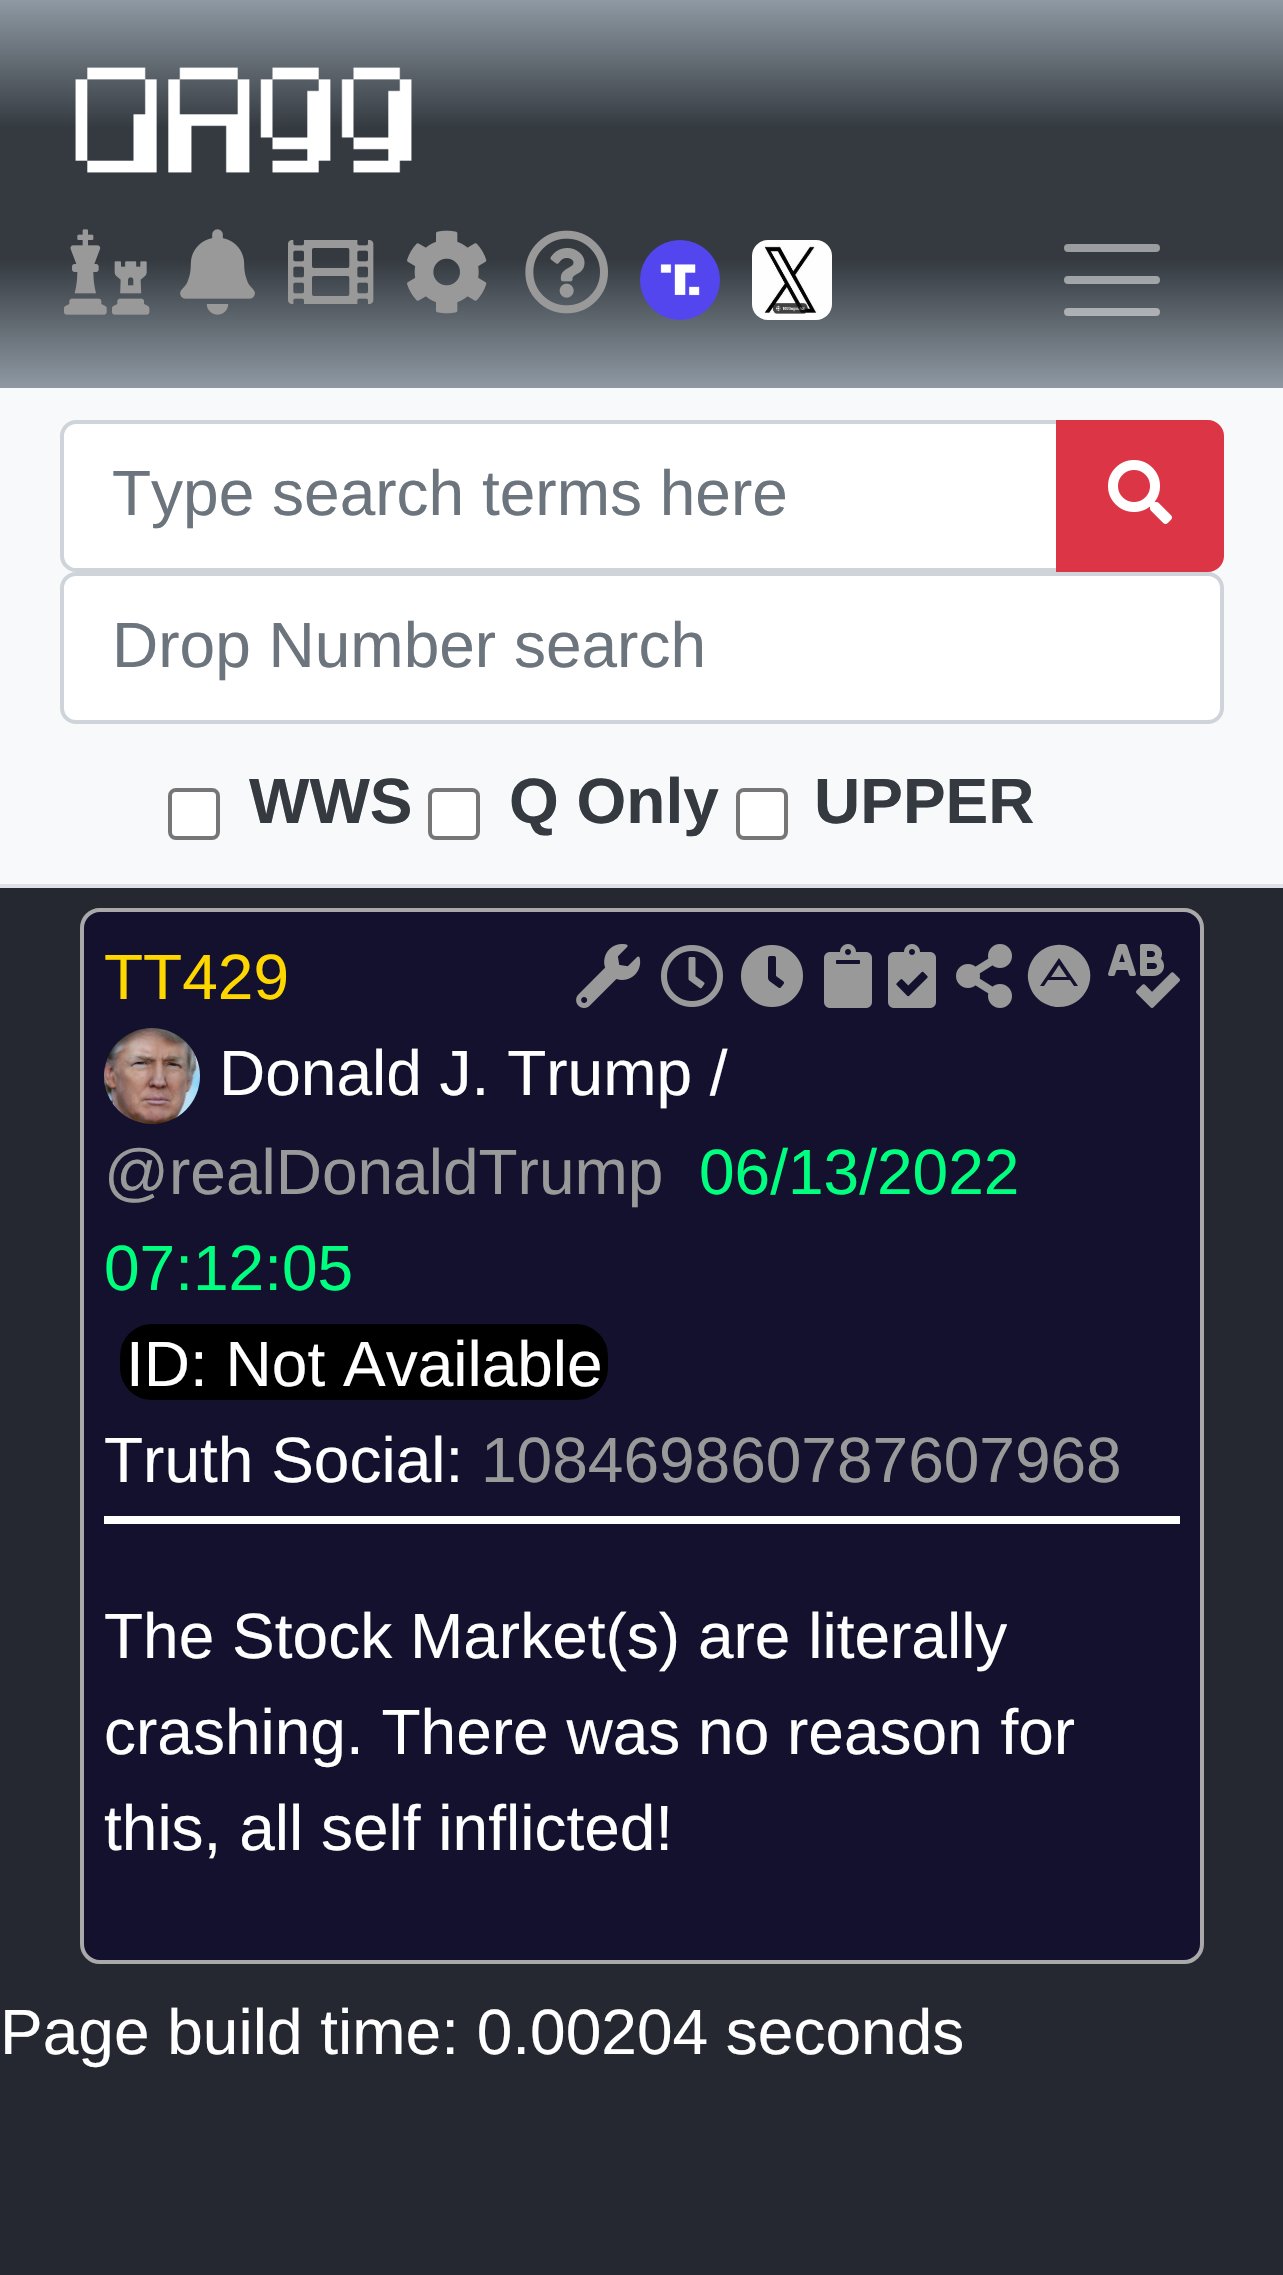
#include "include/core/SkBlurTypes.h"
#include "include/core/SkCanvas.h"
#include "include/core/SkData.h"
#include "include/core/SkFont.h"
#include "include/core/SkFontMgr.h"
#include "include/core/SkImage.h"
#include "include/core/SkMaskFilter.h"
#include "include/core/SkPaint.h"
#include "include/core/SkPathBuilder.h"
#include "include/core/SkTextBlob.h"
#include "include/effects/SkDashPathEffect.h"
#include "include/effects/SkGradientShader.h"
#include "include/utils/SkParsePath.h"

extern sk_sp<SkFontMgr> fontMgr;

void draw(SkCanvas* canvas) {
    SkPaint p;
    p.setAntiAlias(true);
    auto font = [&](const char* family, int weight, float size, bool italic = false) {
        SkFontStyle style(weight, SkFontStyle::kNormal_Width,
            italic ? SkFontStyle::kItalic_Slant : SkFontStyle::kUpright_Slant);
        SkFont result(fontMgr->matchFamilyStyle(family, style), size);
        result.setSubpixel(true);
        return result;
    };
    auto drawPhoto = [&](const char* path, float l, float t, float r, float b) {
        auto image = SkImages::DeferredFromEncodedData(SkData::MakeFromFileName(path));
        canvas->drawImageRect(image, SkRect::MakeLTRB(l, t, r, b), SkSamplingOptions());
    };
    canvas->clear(0xFF252830);
    {
        const SkColor colors[] = {0xFF8F99A3, 0xFF343A40, 0xFF343A40, 0xFF8F99A3};
        const float stops[] = {0, 0.33f, 0.67f, 1};
        const SkPoint ends[] = {{642, 0}, {642, 388}};
        p.setShader(SkGradientShader::MakeLinear(ends, colors, stops, 4, SkTileMode::kClamp));
        p.setAlpha(255);
    }
    canvas->drawRect(SkRect::MakeLTRB(0, 0, 1283, 388), p);
    drawPhoto("media/1.png", 75, 67, 412, 173);
    drawPhoto("media/2.png", 64, 229, 150, 315);
    drawPhoto("media/3.png", 180, 229, 255, 315);
    drawPhoto("media/4.png", 288, 240, 374, 304);
    drawPhoto("media/5.png", 407, 230, 487, 314);
    drawPhoto("media/6.png", 525, 230, 608, 314);
    drawPhoto("media/7.png", 640, 240, 720, 320);
    drawPhoto("media/8.png", 752, 240, 832, 320);
    p.setStyle(SkPaint::kStroke_Style);
    p.setStrokeWidth(8);
    p.setStrokeCap(SkPaint::kRound_Cap);
    p.setShader(nullptr);
    p.setColor(0x80FFFFFF);
    canvas->drawPath(SkPathBuilder().moveTo(1068, 248).lineTo(1156, 248).moveTo(1068, 280).lineTo(1156, 280).moveTo(1068, 312).lineTo(1156, 312).detach(), p);
    p.setStyle(SkPaint::kFill_Style);
    p.setColor(0xFFF8F9FA);
    canvas->drawRect(SkRect::MakeLTRB(0, 388, 1283, 884), p);
    p.setColor(0xFFDEE2E6);
    canvas->drawRect(SkRect::MakeLTRB(0, 884, 1283, 888), p);
    p.setColor(0xFFFFFFFF);
    canvas->drawPath(SkPathBuilder().moveTo(76, 422).lineTo(1058, 422).lineTo(1058, 570).lineTo(76, 570).cubicTo(68.5f, 570, 62, 563.5f, 62, 556).lineTo(62, 436).cubicTo(62, 428.5f, 68.5f, 422, 76, 422).close().detach(), p);
    p.setStyle(SkPaint::kStroke_Style);
    p.setStrokeWidth(4);
    p.setStrokeCap(SkPaint::kButt_Cap);
    p.setColor(0xFFCED4DA);
    canvas->drawPath(SkPathBuilder().moveTo(76, 422).lineTo(1058, 422).lineTo(1058, 570).lineTo(76, 570).cubicTo(68.5f, 570, 62, 563.5f, 62, 556).lineTo(62, 436).cubicTo(62, 428.5f, 68.5f, 422, 76, 422).close().detach(), p);
    auto font1 = font("Liberation Sans", 400, 64);
    p.setStyle(SkPaint::kFill_Style);
    p.setColor(0xFF6C757D);
    canvas->drawString("Type search terms here", 112, 515, font1, p);
    p.setColor(0xFFDC3545);
    canvas->drawPath(SkPathBuilder().moveTo(1058, 422).lineTo(1208, 422).cubicTo(1215.5f, 422, 1222, 428.5f, 1222, 436).lineTo(1222, 556).cubicTo(1222, 563.5f, 1215.5f, 570, 1208, 570).lineTo(1058, 570).close().detach(), p);
    p.setStyle(SkPaint::kStroke_Style);
    canvas->drawPath(SkPathBuilder().moveTo(1058, 422).lineTo(1208, 422).cubicTo(1215.5f, 422, 1222, 428.5f, 1222, 436).lineTo(1222, 556).cubicTo(1222, 563.5f, 1215.5f, 570, 1208, 570).lineTo(1058, 570).close().detach(), p);
    drawPhoto("media/9.png", 1108, 460, 1172, 524);
    p.setStyle(SkPaint::kFill_Style);
    p.setColor(0xFFFFFFFF);
    canvas->drawRoundRect(SkRect::MakeLTRB(62, 574, 1222, 722), 14, 14, p);
    p.setStyle(SkPaint::kStroke_Style);
    p.setColor(0xFFCED4DA);
    canvas->drawRoundRect(SkRect::MakeLTRB(62, 574, 1222, 722), 14, 14, p);
    p.setStyle(SkPaint::kFill_Style);
    p.setColor(0xFF6C757D);
    canvas->drawString("Drop Number search", 112, 667, font1, p);
    p.setColor(0xFFFFFFFF);
    canvas->drawRoundRect(SkRect::MakeLTRB(170, 790, 218, 838), 6, 6, p);
    p.setStyle(SkPaint::kStroke_Style);
    p.setColor(0xFF767676);
    canvas->drawRoundRect(SkRect::MakeLTRB(170, 790, 218, 838), 6, 6, p);
    auto font2 = font("Liberation Sans", 700, 64);
    p.setStyle(SkPaint::kFill_Style);
    p.setColor(0xFF343A40);
    canvas->drawString("WWS", 249, 823, font2, p);
    p.setColor(0xFFFFFFFF);
    canvas->drawRoundRect(SkRect::MakeLTRB(430, 790, 478, 838), 6, 6, p);
    p.setStyle(SkPaint::kStroke_Style);
    p.setColor(0xFF767676);
    canvas->drawRoundRect(SkRect::MakeLTRB(430, 790, 478, 838), 6, 6, p);
    p.setStyle(SkPaint::kFill_Style);
    p.setColor(0xFF343A40);
    canvas->drawString("Q Only", 509, 823, font2, p);
    p.setColor(0xFFFFFFFF);
    canvas->drawRoundRect(SkRect::MakeLTRB(738, 790, 786, 838), 6, 6, p);
    p.setStyle(SkPaint::kStroke_Style);
    p.setColor(0xFF767676);
    canvas->drawRoundRect(SkRect::MakeLTRB(738, 790, 786, 838), 6, 6, p);
    p.setStyle(SkPaint::kFill_Style);
    p.setColor(0xFF343A40);
    canvas->drawString("UPPER", 814, 823, font2, p);
    p.setColor(0xFF14112F);
    canvas->drawRoundRect(SkRect::MakeLTRB(82, 910, 1202, 1962), 18, 18, p);
    p.setStyle(SkPaint::kStroke_Style);
    p.setColor(0xFFA9A9A9);
    canvas->drawRoundRect(SkRect::MakeLTRB(82, 910, 1202, 1962), 18, 18, p);
    p.setStyle(SkPaint::kFill_Style);
    p.setColor(0xFFFFD700);
    canvas->drawString("TT429", 104, 999, font1, p);
    drawPhoto("media/10.png", 576, 944, 641, 1008);
    drawPhoto("media/11.png", 661, 945, 723, 1007);
    drawPhoto("media/12.png", 741, 945, 803, 1007);
    drawPhoto("media/13.png", 824, 944, 872, 1008);
    drawPhoto("media/14.png", 888, 944, 936, 1008);
    drawPhoto("media/15.png", 956, 944, 1012, 1008);
    p.setColor(0xFF999999);
    canvas->drawPath(SkPathBuilder().moveTo(1059, 965).lineTo(1067, 977).lineTo(1051, 977).close().moveTo(1081, 954).cubicTo(1102, 975, 1085, 1009, 1056, 1007).cubicTo(1049, 1006, 1042, 1003, 1037, 998).cubicTo(1032, 993, 1029, 986, 1028, 979).cubicTo(1026, 950, 1060, 933, 1081, 954).close().moveTo(1078, 986).lineTo(1059, 958).lineTo(1040, 986).lineTo(1044, 986).lineTo(1048, 980).lineTo(1070, 980).lineTo(1074, 986).close().detach(), p);
    drawPhoto("media/16.png", 1108, 944, 1180, 1008);
    drawPhoto("media/17.png", 104, 1028, 200, 1124);
    p.setColor(0xFFFFFFFF);
    canvas->drawString("Donald J. Trump /", 219, 1095, font1, p);
    p.setColor(0xFF999999);
    canvas->drawString("@realDonaldTrump", 104, 1194, font1, p);
    p.setColor(0xFF00FF7F);
    canvas->drawString("06/13/2022", 699, 1194, font1, p);
    canvas->drawString("07:12:05", 104, 1290, font1, p);
    p.setColor(0xFF000000);
    canvas->drawRoundRect(SkRect::MakeLTRB(122, 1326, 606, 1398), 30, 30, p);
    p.setStyle(SkPaint::kStroke_Style);
    canvas->drawRoundRect(SkRect::MakeLTRB(122, 1326, 606, 1398), 30, 30, p);
    p.setStyle(SkPaint::kFill_Style);
    p.setColor(0xFFFFFFFF);
    canvas->drawString("ID: Not Available", 126, 1386, font1, p);
    canvas->drawString("Truth Social:", 104, 1482, font1, p);
    p.setColor(0xFF999999);
    canvas->drawString("108469860787607968", 481, 1482, font1, p);
    p.setColor(0xFFFFFFFF);
    canvas->drawRect(SkRect::MakeLTRB(104, 1516, 1180, 1524), p);
    {
        const struct { const char* s; float x, y; } items[] = {
            {"The Stock Market(s) are literally", 104, 1658},
            {"crashing. There was no reason for", 104, 1754},
            {"this, all self inflicted!", 104, 1850},
            {"Page build time: 0.00204 seconds", 0, 2054},
        };
        for (auto [s, x, y] : items) {
            canvas->drawString(s, x, y, font1, p);
        }
    }
}
